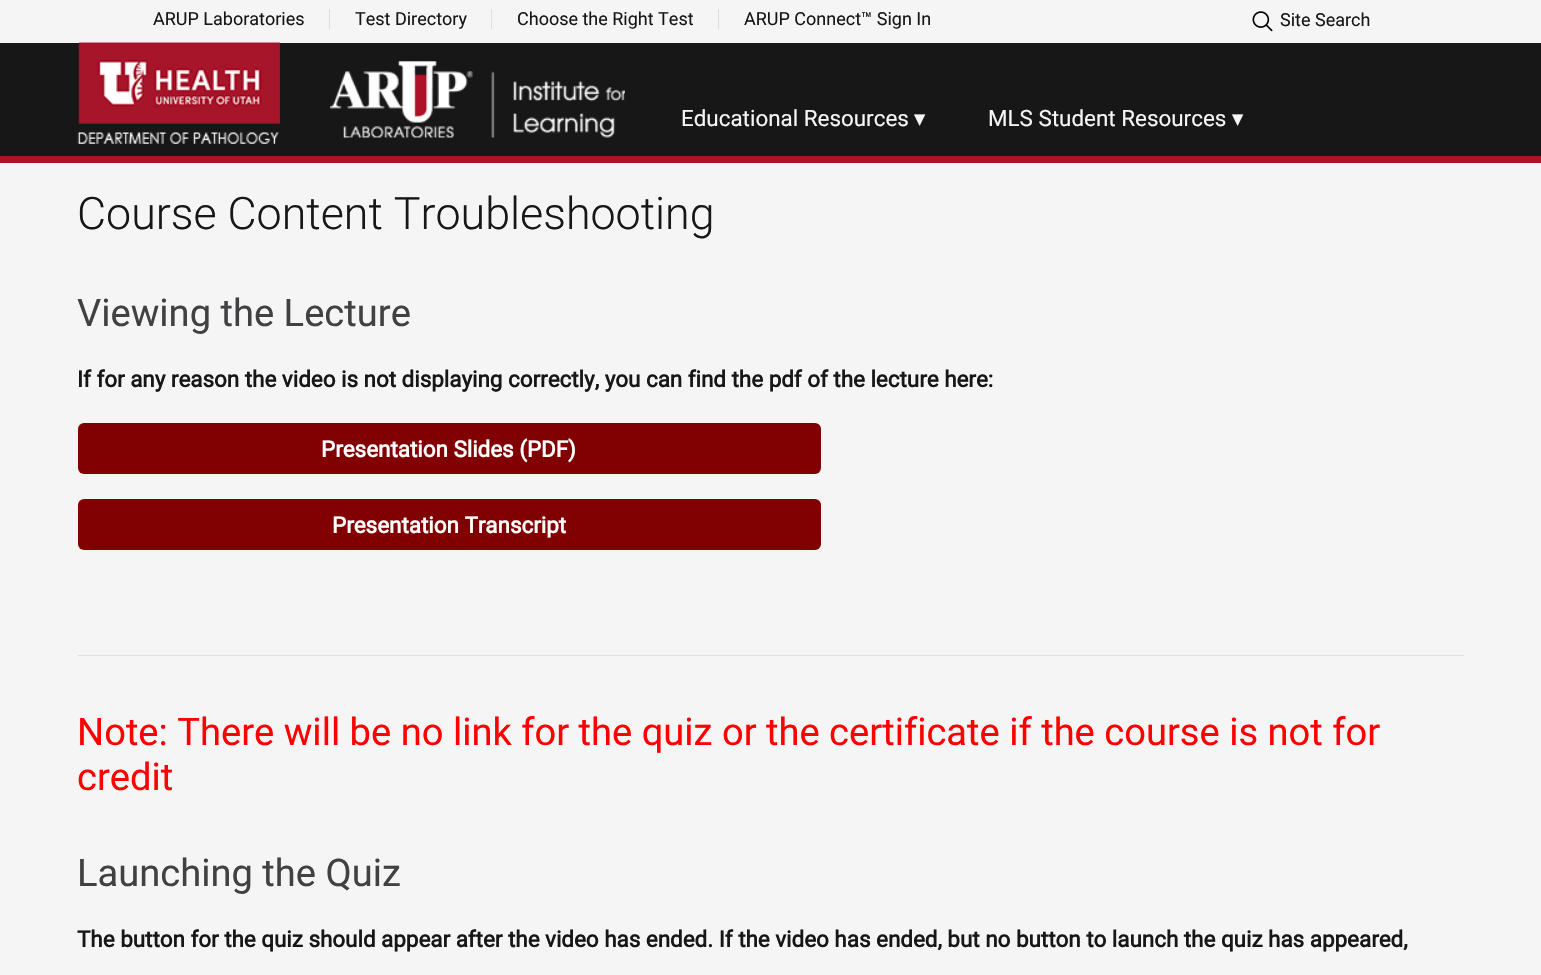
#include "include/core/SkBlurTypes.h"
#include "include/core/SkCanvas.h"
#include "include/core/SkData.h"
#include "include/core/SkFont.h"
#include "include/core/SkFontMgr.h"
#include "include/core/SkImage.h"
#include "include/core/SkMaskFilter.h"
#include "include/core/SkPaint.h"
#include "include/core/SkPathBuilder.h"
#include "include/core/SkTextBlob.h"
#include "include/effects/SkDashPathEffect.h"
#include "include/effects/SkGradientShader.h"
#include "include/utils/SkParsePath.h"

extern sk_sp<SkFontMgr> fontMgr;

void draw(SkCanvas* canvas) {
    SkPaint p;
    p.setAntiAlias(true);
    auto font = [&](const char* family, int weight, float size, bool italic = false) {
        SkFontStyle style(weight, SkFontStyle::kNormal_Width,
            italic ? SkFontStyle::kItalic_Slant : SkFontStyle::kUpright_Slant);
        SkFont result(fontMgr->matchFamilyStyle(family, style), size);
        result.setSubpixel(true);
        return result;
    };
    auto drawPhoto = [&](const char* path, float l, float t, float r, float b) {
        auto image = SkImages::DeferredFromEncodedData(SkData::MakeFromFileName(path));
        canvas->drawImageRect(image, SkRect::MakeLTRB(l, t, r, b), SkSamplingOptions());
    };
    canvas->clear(0xFFF5F5F5);
    p.setColor(0xFFDDDDDD);
    canvas->drawRect(SkRect::MakeLTRB(329, 9, 330, 29), p);
    auto font1 = font("Roboto", 400, 18);
    p.setColor(0xFF171717);
    canvas->drawString("ARUP Laboratories", 153, 25, font1, p);
    p.setColor(0xFFDDDDDD);
    canvas->drawRect(SkRect::MakeLTRB(491, 9, 492, 29), p);
    p.setColor(0xFF171717);
    canvas->drawString("Test Directory", 355, 25, font1, p);
    p.setColor(0xFFDDDDDD);
    canvas->drawRect(SkRect::MakeLTRB(718, 9, 719, 29), p);
    p.setColor(0xFF171717);
    canvas->drawString("Choose the Right Test", 517, 25, font1, p);
    canvas->drawString("ARUP Connect™ Sign In", 744, 25, font1, p);
    drawPhoto("media/1.png", 1252, 11, 1273, 32);
    canvas->drawString("Site Search", 1280, 26, font1, p);
    canvas->drawRect(SkRect::MakeLTRB(0, 43, 1541, 156), p);
    p.setColor(0xFFAE132A);
    canvas->drawRect(SkRect::MakeLTRB(0, 156, 1541, 163), p);
    drawPhoto("media/2.png", 77, 42, 280, 144);
    drawPhoto("media/3.png", 330, 61, 625, 138);
    auto font2 = font("Roboto", 400, 22.4f);
    p.setColor(0xFFF5F5F5);
    canvas->drawString("Educational Resources", 681, 126, font2, p);
    auto font3 = font("DejaVu Sans", 400, 22.4f);
    canvas->drawString("▾", 914, 126, font3, p);
    canvas->drawString("MLS Student Resources", 988, 126, font2, p);
    canvas->drawString("▾", 1232, 126, font3, p);
    auto font4 = font("Roboto", 300, 44.75f);
    p.setColor(0xFF171717);
    canvas->drawString("Course Content Troubleshooting", 77, 229, font4, p);
    auto font5 = font("Roboto", 400, 38.1f);
    p.setColor(0xFF414042);
    canvas->drawString("Viewing the Lecture", 77, 326, font5, p);
    auto font6 = font("Roboto", 700, 22.4f);
    p.setColor(0xFF171717);
    canvas->drawString("If for any reason the video is not displaying correctly, you can find the pdf of the lecture here:", 77, 387, font6, p);
    p.setColor(0xFF810002);
    canvas->drawRoundRect(SkRect::MakeLTRB(78, 423, 821, 474), 6, 6, p);
    p.setColor(0xFFFFFFFF);
    canvas->drawString("Presentation Slides (PDF)", 321, 457, font6, p);
    p.setColor(0xFF810002);
    canvas->drawRoundRect(SkRect::MakeLTRB(78, 499, 821, 550), 6, 6, p);
    p.setColor(0xFFFFFFFF);
    canvas->drawString("Presentation Transcript", 332, 533, font6, p);
    p.setColor(0xFFDEDFE0);
    canvas->drawRect(SkRect::MakeLTRB(78, 655, 1464, 656), p);
    p.setColor(0xFFFF0000);
    canvas->drawString("Note: There will be no link for the quiz or the certificate if the course is not for", 77, 745, font5, p);
    canvas->drawString("credit", 77, 790, font5, p);
    p.setColor(0xFF414042);
    canvas->drawString("Launching the Quiz", 77, 886, font5, p);
    p.setColor(0xFF171717);
    canvas->drawString("The button for the quiz should appear after the video has ended. If the video has ended, but no button to launch the quiz has appeared,", 77, 947, font6, p);
}
